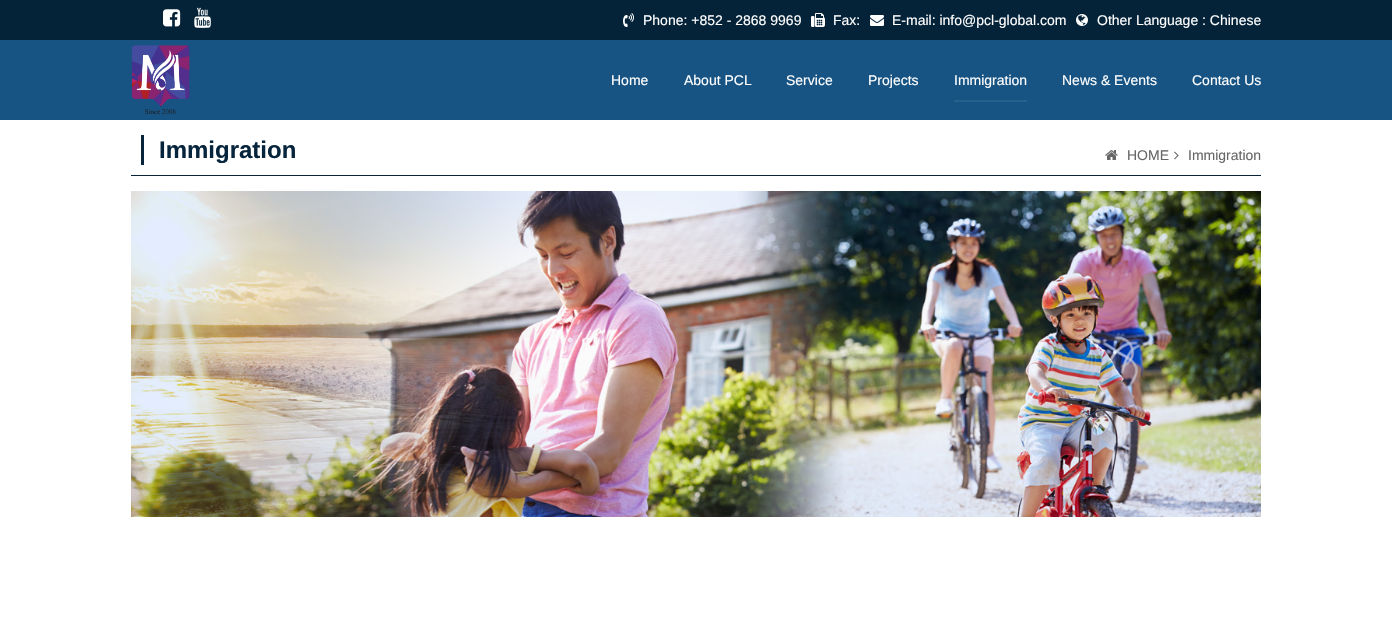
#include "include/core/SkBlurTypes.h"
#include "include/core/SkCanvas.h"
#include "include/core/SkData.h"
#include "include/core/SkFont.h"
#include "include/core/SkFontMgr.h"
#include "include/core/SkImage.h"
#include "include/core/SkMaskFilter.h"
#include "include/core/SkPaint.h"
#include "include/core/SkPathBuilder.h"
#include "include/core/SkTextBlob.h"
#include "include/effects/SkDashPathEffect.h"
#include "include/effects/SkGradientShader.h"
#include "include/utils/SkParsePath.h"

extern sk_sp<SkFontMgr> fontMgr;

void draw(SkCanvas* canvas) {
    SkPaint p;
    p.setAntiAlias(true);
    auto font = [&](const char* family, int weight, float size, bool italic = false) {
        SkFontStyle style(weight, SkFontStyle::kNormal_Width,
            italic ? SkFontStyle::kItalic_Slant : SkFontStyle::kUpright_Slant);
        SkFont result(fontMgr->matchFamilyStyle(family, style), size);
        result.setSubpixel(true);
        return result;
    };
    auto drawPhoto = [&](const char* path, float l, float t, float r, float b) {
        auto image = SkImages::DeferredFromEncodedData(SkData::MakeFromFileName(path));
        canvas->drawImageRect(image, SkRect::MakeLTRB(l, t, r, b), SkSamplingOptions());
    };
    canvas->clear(0xFFFFFFFF);
    p.setColor(0xFF042339);
    canvas->drawRect(SkRect::MakeLTRB(0, 0, 1392, 40), p);
    drawPhoto("media/1.png", 163, 9, 181, 27);
    drawPhoto("media/2.png", 194, 7, 211, 28);
    drawPhoto("media/3.png", 623, 13, 634, 27);
    auto font1 = font("Liberation Sans", 400, 14);
    p.setColor(0xFFFFFFFF);
    canvas->drawString("Phone: +852 - 2868 9969", 643, 25, font1, p);
    drawPhoto("media/4.png", 811, 13, 825, 27);
    canvas->drawString("Fax:", 833, 25, font1, p);
    drawPhoto("media/5.png", 870, 15, 884, 26);
    canvas->drawString("E-mail: info@pcl-global.com", 892, 25, font1, p);
    drawPhoto("media/6.png", 1076, 14, 1088, 26);
    canvas->drawString("Other Language : Chinese", 1097, 25, font1, p);
    p.setColor(0xFF175483);
    canvas->drawRect(SkRect::MakeLTRB(0, 40, 1392, 120), p);
    drawPhoto("media/7.png", 131, 45, 190, 115);
    p.setColor(0xFFFFFFFF);
    {
        const struct { const char* s; float x, y; } items[] = {
            {"Home", 611, 85},
            {"About PCL", 684, 85},
            {"Service", 786, 85},
            {"Projects", 868, 85},
            {"Immigration", 954, 85},
        };
        for (auto [s, x, y] : items) {
            canvas->drawString(s, x, y, font1, p);
        }
    }
    p.setColor(0xFF24618B);
    canvas->drawRect(SkRect::MakeLTRB(954, 100, 1027, 102), p);
    p.setColor(0xFFFFFFFF);
    canvas->drawString("News & Events", 1062, 85, font1, p);
    canvas->drawString("Contact Us", 1192, 85, font1, p);
    p.setColor(0xFF06253D);
    canvas->drawRect(SkRect::MakeLTRB(131, 175, 1261, 176), p);
    canvas->drawRect(SkRect::MakeLTRB(141, 135, 144, 165), p);
    auto font2 = font("Liberation Sans", 700, 24);
    canvas->drawString("Immigration", 159, 158, font2, p);
    drawPhoto("media/8.png", 1105, 150, 1118, 160);
    p.setColor(0xFF666666);
    canvas->drawString("HOME", 1127, 160, font1, p);
    drawPhoto("media/9.png", 1174, 151, 1179, 160);
    canvas->drawString("Immigration", 1188, 160, font1, p);
    drawPhoto("media/10.png", 131, 191, 1261, 517);
}
